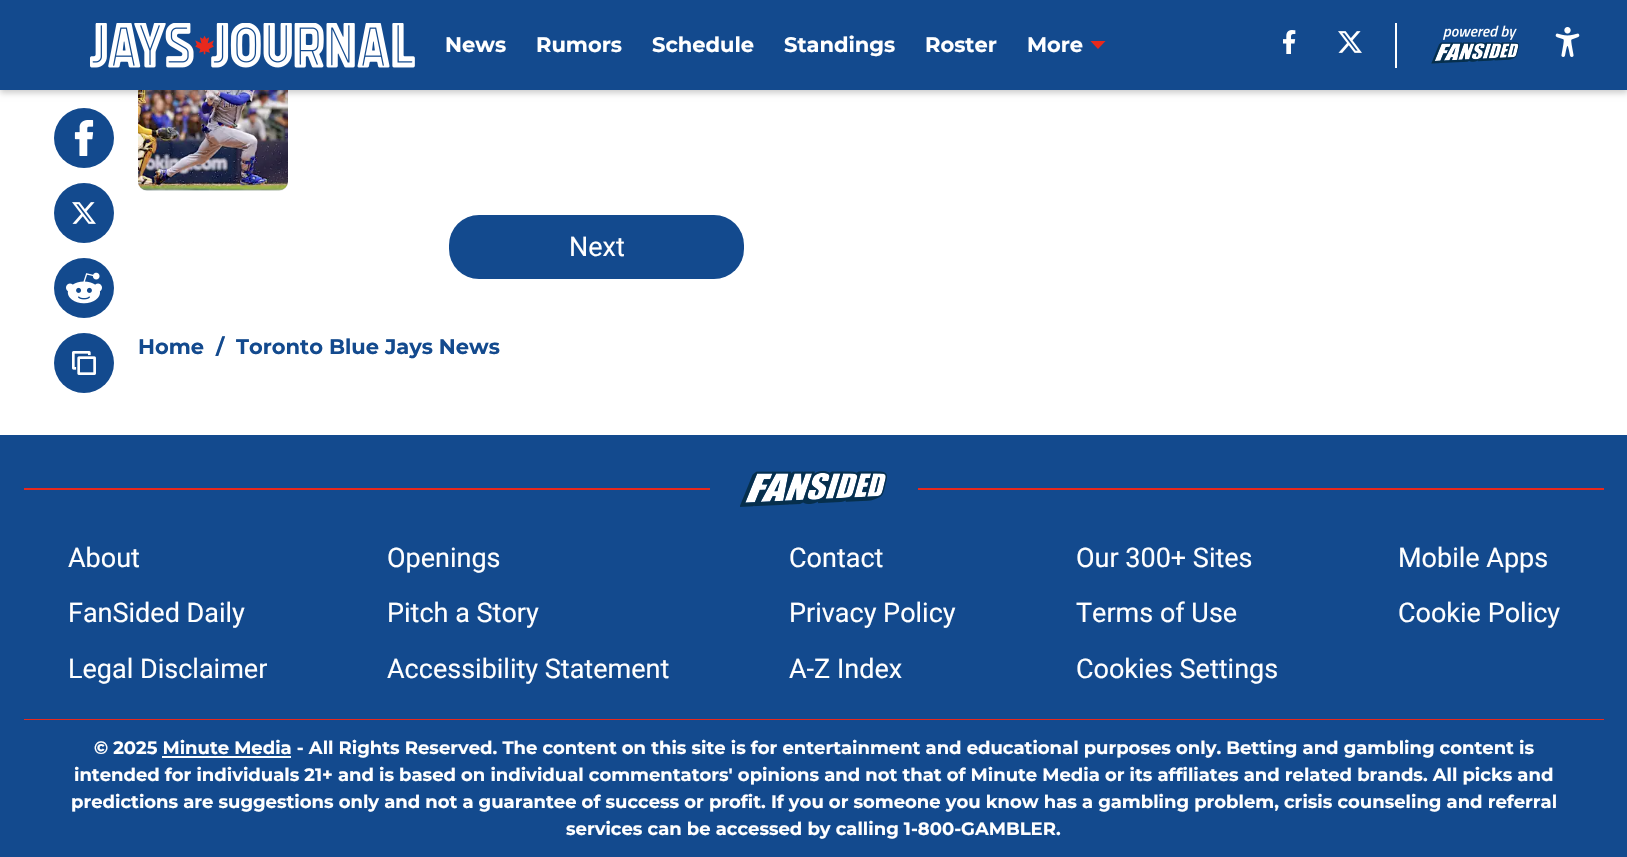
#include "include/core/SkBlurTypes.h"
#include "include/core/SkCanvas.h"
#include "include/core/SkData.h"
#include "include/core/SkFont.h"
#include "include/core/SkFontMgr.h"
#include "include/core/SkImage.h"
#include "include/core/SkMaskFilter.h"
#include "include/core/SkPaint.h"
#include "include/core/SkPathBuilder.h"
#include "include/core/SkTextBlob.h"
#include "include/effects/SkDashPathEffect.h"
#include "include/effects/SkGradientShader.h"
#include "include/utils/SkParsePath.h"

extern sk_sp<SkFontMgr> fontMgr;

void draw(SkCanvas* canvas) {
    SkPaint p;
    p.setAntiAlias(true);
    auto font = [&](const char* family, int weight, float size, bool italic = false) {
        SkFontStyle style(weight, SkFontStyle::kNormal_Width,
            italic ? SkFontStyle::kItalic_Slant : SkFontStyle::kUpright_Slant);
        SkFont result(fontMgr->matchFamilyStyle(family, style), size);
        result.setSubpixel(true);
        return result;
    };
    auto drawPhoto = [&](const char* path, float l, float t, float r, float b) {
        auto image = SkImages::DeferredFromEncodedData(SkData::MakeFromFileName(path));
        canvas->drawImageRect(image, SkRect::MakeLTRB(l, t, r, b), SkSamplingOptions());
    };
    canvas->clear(0xFFFFFFFF);
    p.setColor(0xFFE5E7EB);
    canvas->drawRoundRect(SkRect::MakeLTRB(138, 41, 288, 191), 9, 9, p);
    drawPhoto("media/9.png", 138, 90, 288, 191);
    p.setColor(0x33000000);
    p.setMaskFilter(SkMaskFilter::MakeBlur(kNormal_SkBlurStyle, 3));
    canvas->drawRect(SkRect::MakeLTRB(0, 3, 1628, 93), p);
    p.setMaskFilter(nullptr);
    p.setColor(0xFF134A8E);
    canvas->drawRect(SkRect::MakeLTRB(0, 0, 1627, 90), p);
    drawPhoto("media/1.png", 90, 23, 415, 68);
    auto font1 = font("Montserrat", 100, 21);
    p.setColor(0xFFFFFFFF);
    {
        const struct { const char* s; float x, y; } items[] = {
            {"News", 445, 52},
            {"Rumors", 536, 52},
            {"Schedule", 652, 52},
            {"Standings", 784, 52},
            {"Roster", 925, 52},
            {"More", 1027, 52},
        };
        for (auto [s, x, y] : items) {
            canvas->drawString(s, x, y, font1, p);
        }
    }
    p.setColor(0xFFE8291C);
    canvas->drawPath(SkPathBuilder(SkPathFillType::kEvenOdd).moveTo(1090.5f, 41).lineTo(1098, 49).lineTo(1105.5f, 41).close().detach(), p);
    drawPhoto("media/2.png", 1283, 30, 1296, 54);
    drawPhoto("media/3.png", 1338, 31, 1362, 53);
    p.setColor(0xFFFFFFFF);
    canvas->drawRect(SkRect::MakeLTRB(1395, 23, 1397, 68), p);
    drawPhoto("media/4.png", 1431, 25, 1520, 64);
    drawPhoto("media/5.png", 1555, 27, 1580, 57);
    p.setColor(0xFF134A8E);
    canvas->drawCircle(84, 138, 30, p);
    drawPhoto("media/6.png", 74, 120, 94, 156);
    canvas->drawCircle(84, 213, 30, p);
    drawPhoto("media/3.png", 72, 202, 96, 224);
    canvas->drawCircle(84, 288, 30, p);
    drawPhoto("media/7.png", 66, 272, 102, 304);
    canvas->drawCircle(84, 363, 30, p);
    drawPhoto("media/8.png", 72, 351, 96, 375);
    canvas->drawRoundRect(SkRect::MakeLTRB(449, 215, 744, 279), 30, 30, p);
    auto font2 = font("Roboto", 400, 27);
    p.setColor(0xFFFFFFFF);
    canvas->drawString("Next", 569, 256, font2, p);
    p.setColor(0xFF134A8E);
    {
        const struct { const char* s; float x, y; } items[] = {
            {"Home", 138, 354},
            {"/", 216, 354},
            {"Toronto Blue Jays News", 236, 354},
        };
        for (auto [s, x, y] : items) {
            canvas->drawString(s, x, y, font1, p);
        }
    }
    canvas->drawRect(SkRect::MakeLTRB(0, 435, 1627, 857), p);
    p.setColor(0xFFE8291C);
    canvas->drawRect(SkRect::MakeLTRB(24, 488, 710, 490), p);
    drawPhoto("media/10.png", 740, 471, 887, 507);
    canvas->drawRect(SkRect::MakeLTRB(918, 488, 1604, 490), p);
    p.setColor(0xFFFFFFFF);
    {
        const struct { const char* s; float x, y; } items[] = {
            {"About", 68, 567},
            {"Openings", 387, 567},
            {"Contact", 789, 567},
            {"Our 300+ Sites", 1076, 567},
            {"Mobile Apps", 1398, 567},
            {"FanSided Daily", 68, 622},
            {"Pitch a Story", 387, 622},
            {"Privacy Policy", 789, 622},
            {"Terms of Use", 1076, 622},
            {"Cookie Policy", 1398, 622},
            {"Legal Disclaimer", 68, 678},
            {"Accessibility Statement", 387, 678},
            {"A-Z Index", 789, 678},
            {"Cookies Settings", 1076, 678},
        };
        for (auto [s, x, y] : items) {
            canvas->drawString(s, x, y, font2, p);
        }
    }
    p.setColor(0xFFE8291C);
    canvas->drawRect(SkRect::MakeLTRB(24, 719, 1604, 720), p);
    auto font3 = font("Montserrat", 100, 18);
    p.setColor(0xFFFFFFFF);
    canvas->drawString("© 2025 Minute Media - All Rights Reserved. The content on this site is for entertainment and educational purposes only. Betting and gambling content is", 94, 754, font3, p);
    canvas->drawRect(SkRect::MakeLTRB(162, 756, 291, 758), p);
    {
        const struct { const char* s; float x, y; } items[] = {
            {"intended for individuals 21+ and is based on individual commentators' opinions and not that of Minute Media or its affiliates and related brands. All picks and", 74, 781},
            {"predictions are suggestions only and not a guarantee of success or profit. If you or someone you know has a gambling problem, crisis counseling and referral", 71, 808},
            {"services can be accessed by calling 1-800-GAMBLER.", 566, 835},
        };
        for (auto [s, x, y] : items) {
            canvas->drawString(s, x, y, font3, p);
        }
    }
}
